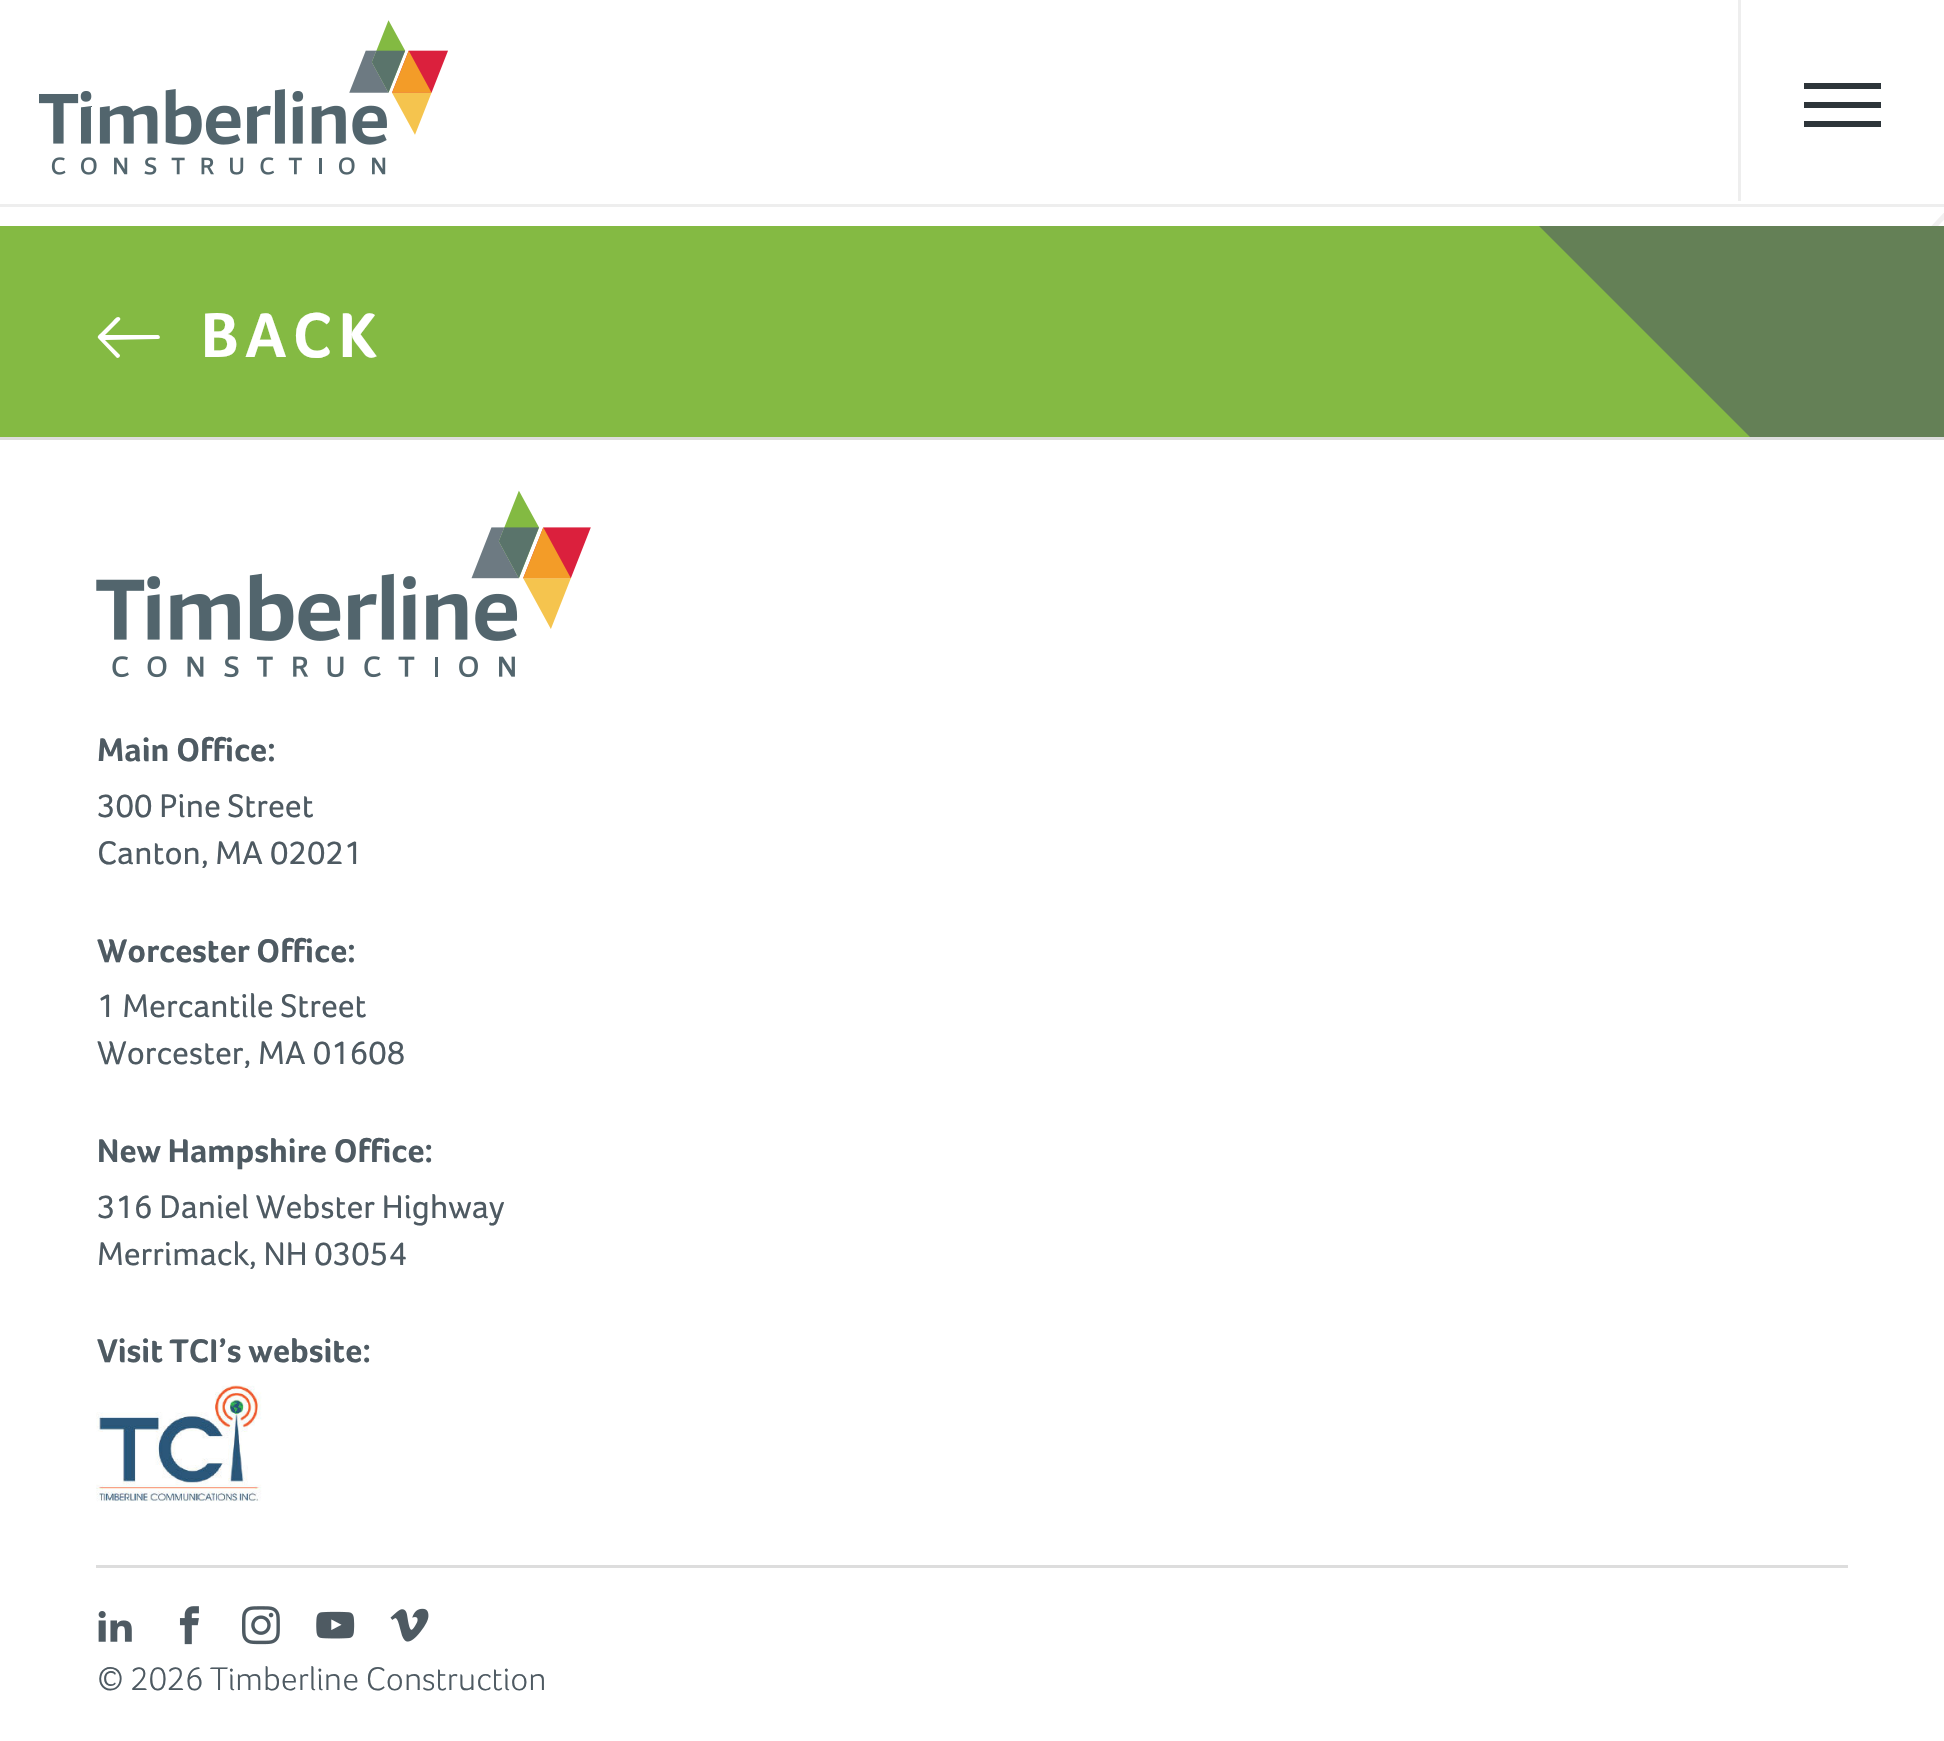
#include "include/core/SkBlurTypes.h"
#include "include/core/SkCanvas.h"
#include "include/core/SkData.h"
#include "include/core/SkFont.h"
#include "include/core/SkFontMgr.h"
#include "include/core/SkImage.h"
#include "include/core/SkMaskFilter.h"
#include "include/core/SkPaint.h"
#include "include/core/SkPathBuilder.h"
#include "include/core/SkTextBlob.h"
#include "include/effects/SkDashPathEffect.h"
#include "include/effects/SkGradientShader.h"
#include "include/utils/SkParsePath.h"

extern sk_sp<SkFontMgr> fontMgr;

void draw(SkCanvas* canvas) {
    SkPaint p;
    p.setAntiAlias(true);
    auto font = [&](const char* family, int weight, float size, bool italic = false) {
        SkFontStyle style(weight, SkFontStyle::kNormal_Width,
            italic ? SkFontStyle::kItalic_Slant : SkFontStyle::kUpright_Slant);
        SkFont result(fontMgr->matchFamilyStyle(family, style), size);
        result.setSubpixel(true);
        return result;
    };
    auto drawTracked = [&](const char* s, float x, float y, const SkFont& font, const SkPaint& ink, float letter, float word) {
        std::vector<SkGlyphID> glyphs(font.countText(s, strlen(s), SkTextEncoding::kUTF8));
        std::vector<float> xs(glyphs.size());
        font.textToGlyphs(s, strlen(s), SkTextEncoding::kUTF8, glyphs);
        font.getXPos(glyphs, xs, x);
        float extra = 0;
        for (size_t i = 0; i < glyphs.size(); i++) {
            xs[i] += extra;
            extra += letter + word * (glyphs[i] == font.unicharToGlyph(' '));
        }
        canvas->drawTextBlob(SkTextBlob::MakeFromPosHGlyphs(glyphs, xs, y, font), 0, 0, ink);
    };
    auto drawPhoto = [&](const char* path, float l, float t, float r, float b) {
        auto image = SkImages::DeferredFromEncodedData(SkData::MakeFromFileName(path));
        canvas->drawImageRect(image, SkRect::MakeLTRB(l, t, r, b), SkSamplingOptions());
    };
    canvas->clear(0xFFFFFFFF);
    p.setColor(0xFFEEEEEE);
    canvas->drawRect(SkRect::MakeLTRB(0, 204, 1944, 207), p);
    drawPhoto("media/1.png", 39, 20, 448, 175);
    {
        const struct { float l, t, r, b; SkColor color; } items[] = {
            {1738, 0, 1741, 201, 0xFFEEEEEE},
            {1804, 83, 1881, 89, 0xFF2D353A},
            {1804, 102, 1881, 108, 0xFF2D353A},
            {1804, 121, 1881, 127, 0xFF2D353A},
        };
        for (auto [l, t, r, b, color] : items) {
            p.setColor(color);
            canvas->drawRect(SkRect::MakeLTRB(l, t, r, b), p);
        }
    }
    drawPhoto("media/2.png", 1931, 213, 1944, 226);
    p.setColor(0xFF84BA43);
    canvas->drawRect(SkRect::MakeLTRB(0, 226, 1750, 437), p);
    p.setColor(0xFFFFFFFF);
    canvas->drawPath(SkPathBuilder().moveTo(158, 335).lineTo(105, 335).lineTo(120, 320).cubicTo(121, 319, 120, 317, 118, 317).cubicTo(116, 317, 114, 320, 113, 321).lineTo(101, 333).cubicTo(100, 334, 97, 336, 98, 338).lineTo(117, 358).cubicTo(119, 358, 120, 357, 120, 355).lineTo(105, 340).lineTo(158, 339).cubicTo(161, 339, 160, 335, 158, 335).close().detach(), p);
    auto font1 = font("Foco", 700, 65);
    drawTracked("BACK", 201, 357, font1, p, 6.5f, 0);
    canvas->save();
    canvas->clipRect(SkRect::MakeLTRB(0, 226, 1944, 437));
    p.setColor(0xFF648056);
    canvas->drawPath(SkPathBuilder().moveTo(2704, 225).lineTo(1538, 225).lineTo(1750, 437).lineTo(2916, 437).close().detach(), p);
    canvas->restore();
    p.setColor(0xFFDDDDDD);
    canvas->drawRect(SkRect::MakeLTRB(0, 437, 1944, 440), p);
    drawPhoto("media/3.png", 96, 490, 591, 678);
    auto font2 = font("Foco", 700, 33.75f);
    p.setColor(0xFF4E5A62);
    canvas->drawString("Main Office:", 97, 761, font2, p);
    auto font3 = font("Foco", 400, 33.75f);
    canvas->drawString("300 Pine Street", 97, 817, font3, p);
    canvas->drawString("Canton, MA 02021", 97, 864, font3, p);
    canvas->drawString("Worcester Office:", 97, 962, font2, p);
    canvas->drawString("1 Mercantile Street", 97, 1017, font3, p);
    canvas->drawString("Worcester, MA 01608", 97, 1064, font3, p);
    canvas->drawString("New Hampshire Office:", 97, 1162, font2, p);
    canvas->drawString("316 Daniel Webster Highway", 97, 1218, font3, p);
    canvas->drawString("Merrimack, NH 03054", 97, 1265, font3, p);
    canvas->drawString("Visit TCI’s website:", 97, 1362, font2, p);
    drawPhoto("media/4.png", 96, 1385, 262, 1502);
    p.setColor(0xFFDDDDDD);
    canvas->drawRect(SkRect::MakeLTRB(96, 1565, 1848, 1568), p);
    drawPhoto("media/5.png", 98, 1611, 132, 1642);
    drawPhoto("media/6.png", 179, 1606, 199, 1645);
    drawPhoto("media/7.png", 242, 1606, 280, 1645);
    drawPhoto("media/8.png", 316, 1611, 355, 1639);
    drawPhoto("media/9.png", 390, 1608, 429, 1642);
    auto font4 = font("Foco", 300, 33.75f);
    p.setColor(0xFF4E5A62);
    canvas->drawString("© 2026 Timberline Construction", 97, 1690, font4, p);
}
